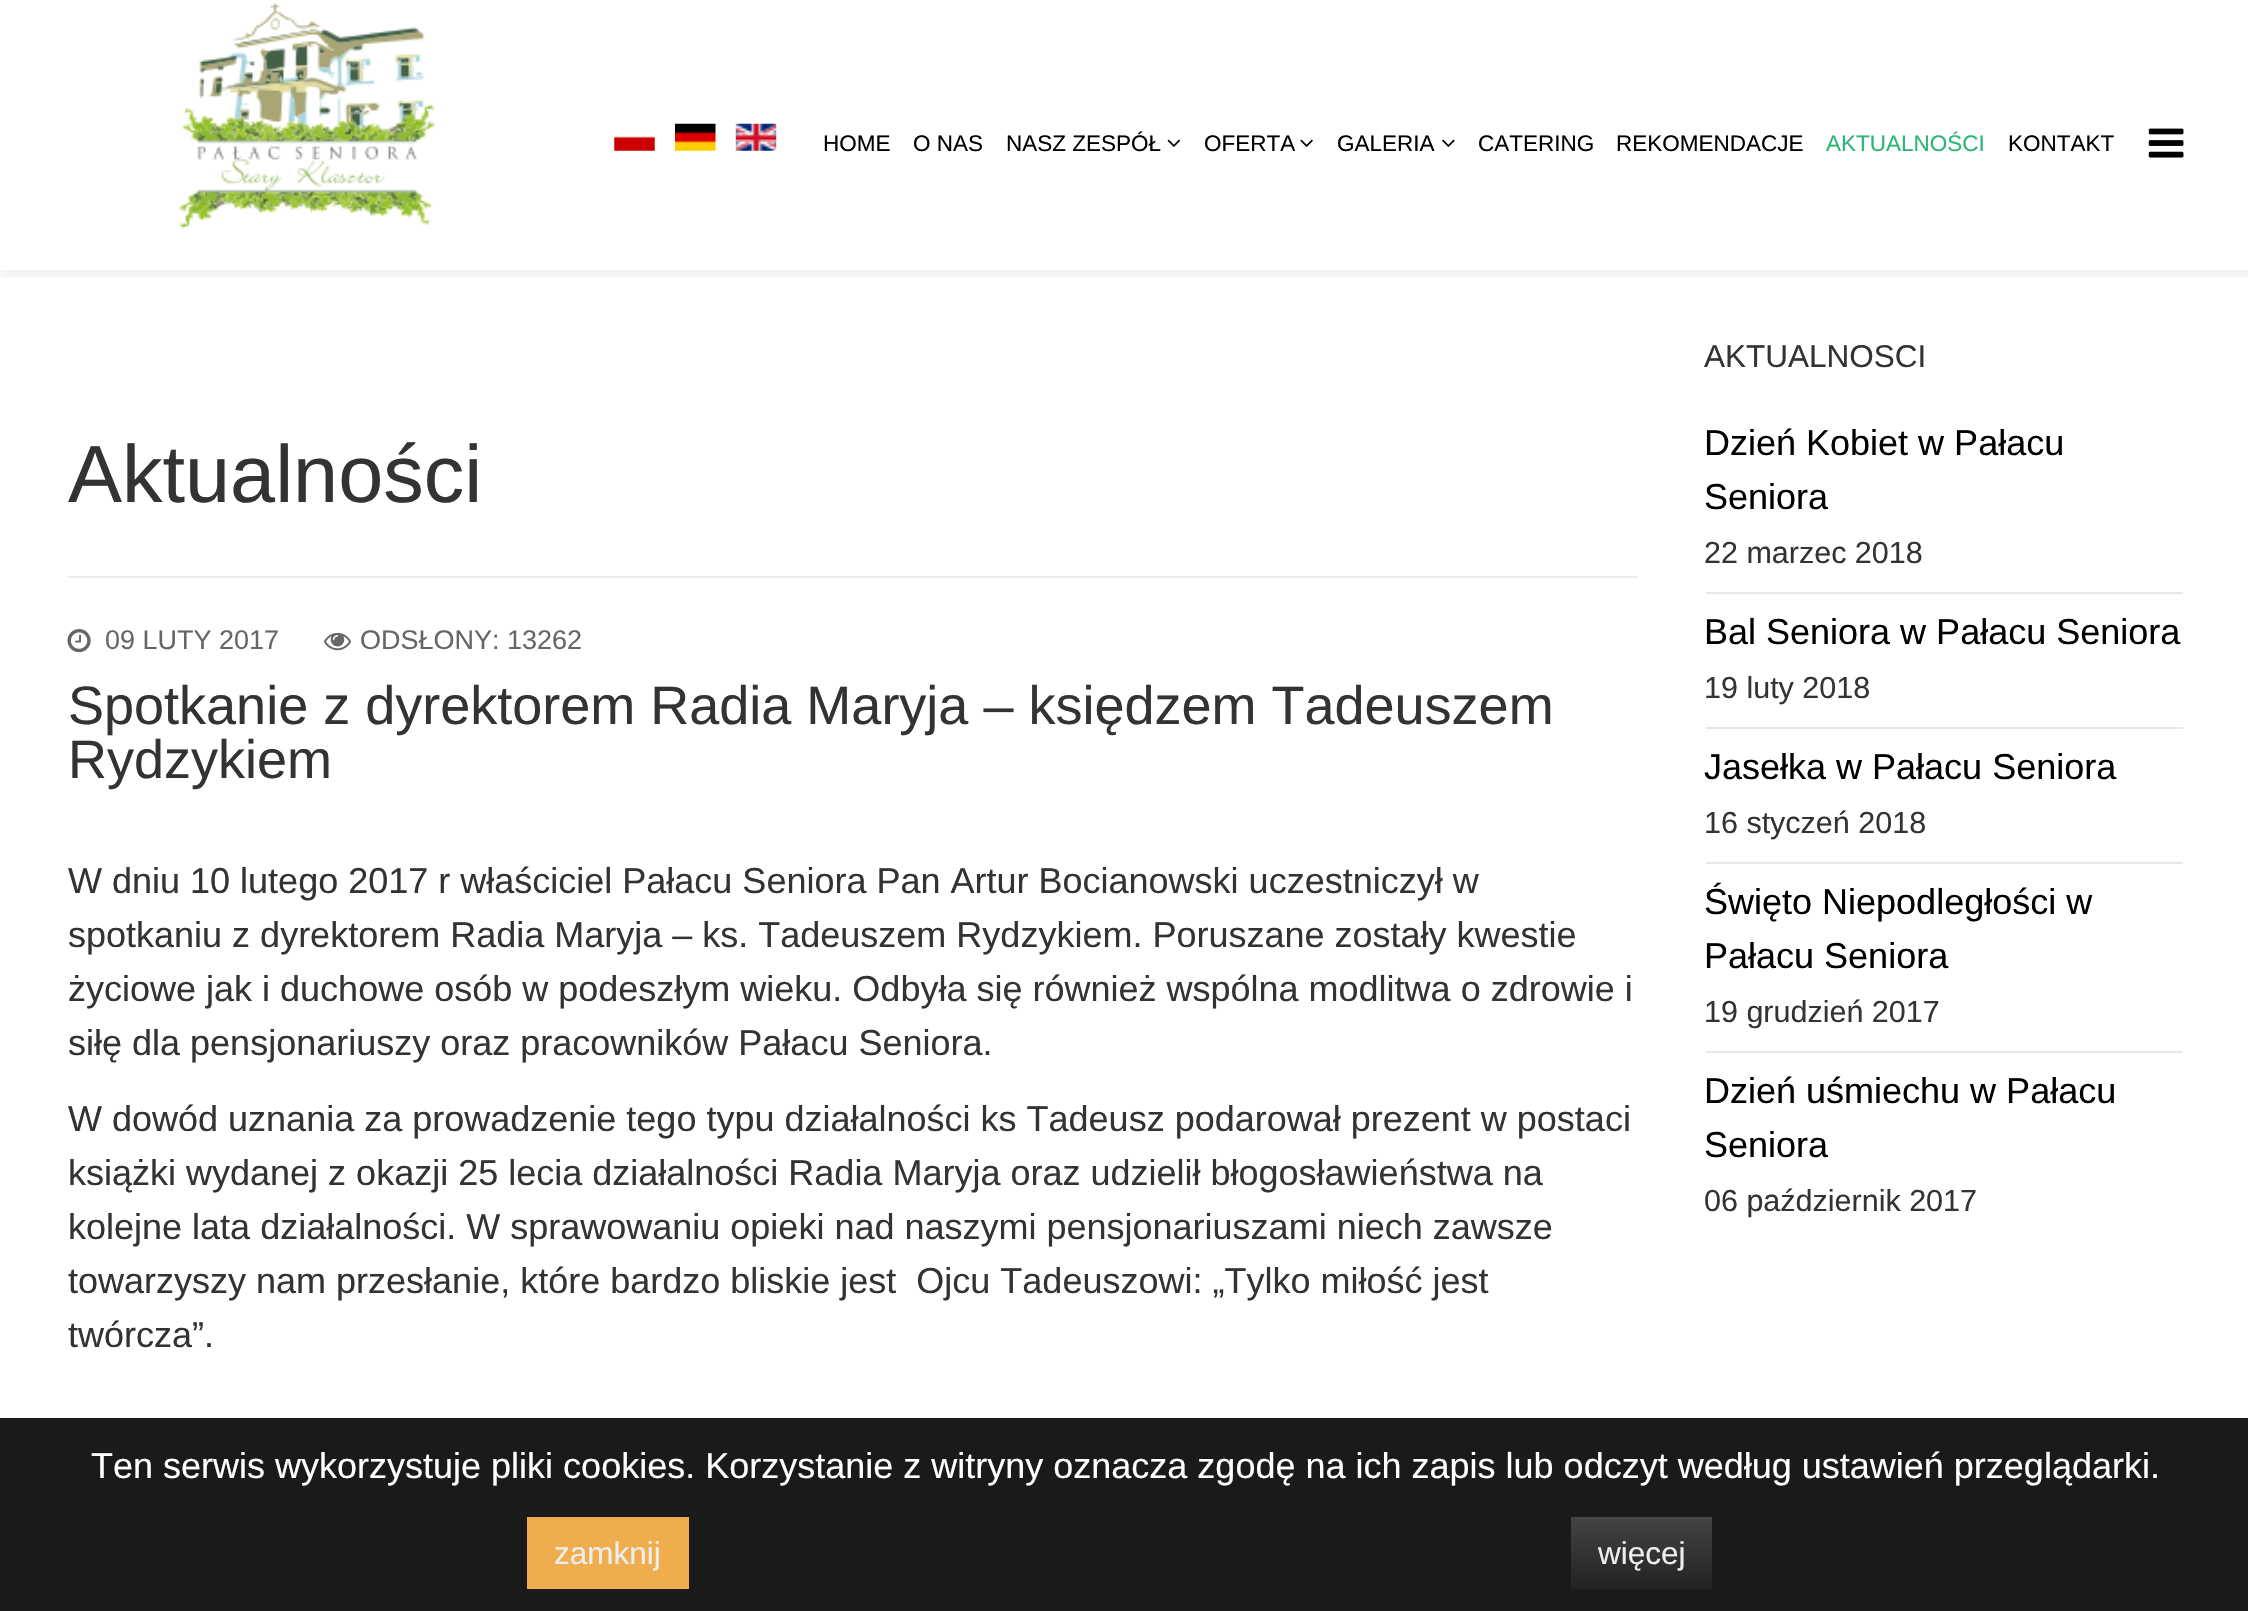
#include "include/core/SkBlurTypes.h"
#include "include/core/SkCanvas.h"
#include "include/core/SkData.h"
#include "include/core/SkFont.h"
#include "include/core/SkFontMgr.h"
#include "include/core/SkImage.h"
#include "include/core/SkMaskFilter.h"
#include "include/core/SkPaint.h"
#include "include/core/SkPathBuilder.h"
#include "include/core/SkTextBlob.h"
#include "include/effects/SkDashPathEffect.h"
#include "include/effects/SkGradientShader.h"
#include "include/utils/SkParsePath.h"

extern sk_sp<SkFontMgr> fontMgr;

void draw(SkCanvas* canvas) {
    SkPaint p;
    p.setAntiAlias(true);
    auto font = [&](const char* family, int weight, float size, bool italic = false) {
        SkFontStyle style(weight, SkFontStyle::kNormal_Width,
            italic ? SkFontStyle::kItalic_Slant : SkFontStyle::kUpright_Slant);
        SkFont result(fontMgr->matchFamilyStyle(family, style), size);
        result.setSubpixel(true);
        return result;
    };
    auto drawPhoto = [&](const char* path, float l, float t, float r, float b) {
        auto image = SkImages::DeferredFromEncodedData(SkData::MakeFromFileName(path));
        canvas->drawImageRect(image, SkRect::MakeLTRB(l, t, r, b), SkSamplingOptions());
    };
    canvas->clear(0xFFFFFFFF);
    canvas->save();
    canvas->clipRect(SkRect::MakeLTRB(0, 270, 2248, 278));
    p.setColor(0x0D000000);
    p.setMaskFilter(SkMaskFilter::MakeBlur(kNormal_SkBlurStyle, 3.5f));
    canvas->drawRect(SkRect::MakeLTRB(0, 7, 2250, 277), p);
    p.setMaskFilter(nullptr);
    canvas->restore();
    drawPhoto("media/1.png", 178, 2, 436, 229);
    drawPhoto("media/2.png", 614, 136, 655, 151);
    drawPhoto("media/3.png", 675, 123, 716, 151);
    drawPhoto("media/4.png", 735, 123, 777, 151);
    auto font1 = font("Arimo", 400, 22.5f);
    p.setColor(0xFF000000);
    {
        const struct { const char* s; float x, y; } items[] = {
            {"HOME", 823, 151},
            {"O NAS", 913, 151},
            {"NASZ ZESPÓŁ", 1006, 151},
        };
        for (auto [s, x, y] : items) {
            canvas->drawString(s, x, y, font1, p);
        }
    }
    drawPhoto("media/5.png", 1167, 139, 1181, 147);
    canvas->drawString("OFERTA", 1204, 151, font1, p);
    drawPhoto("media/6.png", 1300, 139, 1313, 147);
    canvas->drawString("GALERIA", 1337, 151, font1, p);
    drawPhoto("media/7.png", 1442, 139, 1455, 147);
    canvas->drawString("CATERING", 1478, 151, font1, p);
    canvas->drawString("REKOMENDACJE", 1616, 151, font1, p);
    p.setColor(0xFF2BB673);
    canvas->drawString("AKTUALNOŚCI", 1826, 151, font1, p);
    p.setColor(0xFF000000);
    canvas->drawString("KONTAKT", 2008, 151, font1, p);
    drawPhoto("media/8.png", 2148, 128, 2184, 158);
    p.setColor(0xFFEEEEEE);
    canvas->drawRect(SkRect::MakeLTRB(68, 576, 1638, 578), p);
    auto font2 = font("Arimo", 400, 81);
    p.setColor(0xFF333333);
    canvas->drawString("Aktualności", 68, 502, font2, p);
    drawPhoto("media/9.png", 67, 629, 91, 653);
    auto font3 = font("Arimo", 400, 27);
    p.setColor(0xFF666666);
    canvas->drawString("09 LUTY 2017", 105, 649, font3, p);
    drawPhoto("media/10.png", 324, 632, 351, 651);
    canvas->drawString("ODSŁONY: 13262", 360, 649, font3, p);
    auto font4 = font("Arimo", 400, 54);
    p.setColor(0xFF333333);
    canvas->drawString("Spotkanie z dyrektorem Radia Maryja – księdzem Tadeuszem", 68, 724, font4, p);
    canvas->drawString("Rydzykiem", 68, 778, font4, p);
    auto font5 = font("Arimo", 400, 36);
    {
        const struct { const char* s; float x, y; } items[] = {
            {"W dniu 10 lutego 2017 r właściciel Pałacu Seniora Pan Artur Bocianowski uczestniczył w", 68, 893},
            {"spotkaniu z dyrektorem Radia Maryja – ks. Tadeuszem Rydzykiem. Poruszane zostały kwestie", 68, 947},
            {"życiowe jak i duchowe osób w podeszłym wieku. Odbyła się również wspólna modlitwa o zdrowie i", 68, 1001},
            {"siłę dla pensjonariuszy oraz pracowników Pałacu Seniora.", 68, 1055},
            {"W dowód uznania za prowadzenie tego typu działalności ks Tadeusz podarował prezent w postaci", 68, 1131},
            {"książki wydanej z okazji 25 lecia działalności Radia Maryja oraz udzielił błogosławieństwa na", 68, 1185},
            {"kolejne lata działalności. W sprawowaniu opieki nad naszymi pensjonariuszami niech zawsze", 68, 1239},
            {"towarzyszy nam przesłanie, które bardzo bliskie jest  Ojcu Tadeuszowi: „Tylko miłość jest", 68, 1293},
            {"twórcza”.", 68, 1347},
        };
        for (auto [s, x, y] : items) {
            canvas->drawString(s, x, y, font5, p);
        }
    }
    auto font6 = font("Arimo", 400, 31.5f);
    canvas->drawString("AKTUALNOSCI", 1704, 367, font6, p);
    p.setColor(0xFFE8E8E8);
    canvas->drawRect(SkRect::MakeLTRB(1706, 592, 2183, 594), p);
    p.setColor(0xFF000000);
    canvas->drawString("Dzień Kobiet w Pałacu", 1704, 455, font5, p);
    canvas->drawString("Seniora", 1704, 509, font5, p);
    auto font7 = font("Arimo", 400, 30.5f);
    p.setColor(0xFF333333);
    canvas->drawString("22 marzec 2018", 1704, 563, font7, p);
    p.setColor(0xFFE8E8E8);
    canvas->drawRect(SkRect::MakeLTRB(1706, 727, 2183, 729), p);
    p.setColor(0xFF000000);
    canvas->drawString("Bal Seniora w Pałacu Seniora", 1704, 644, font5, p);
    p.setColor(0xFF333333);
    canvas->drawString("19 luty 2018", 1704, 698, font7, p);
    p.setColor(0xFFE8E8E8);
    canvas->drawRect(SkRect::MakeLTRB(1706, 862, 2183, 864), p);
    p.setColor(0xFF000000);
    canvas->drawString("Jasełka w Pałacu Seniora", 1704, 779, font5, p);
    p.setColor(0xFF333333);
    canvas->drawString("16 styczeń 2018", 1704, 833, font7, p);
    p.setColor(0xFFE8E8E8);
    canvas->drawRect(SkRect::MakeLTRB(1706, 1051, 2183, 1053), p);
    p.setColor(0xFF000000);
    canvas->drawString("Święto Niepodległości w", 1704, 914, font5, p);
    canvas->drawString("Pałacu Seniora", 1704, 968, font5, p);
    p.setColor(0xFF333333);
    canvas->drawString("19 grudzień 2017", 1704, 1022, font7, p);
    p.setColor(0xFF000000);
    canvas->drawString("Dzień uśmiechu w Pałacu", 1704, 1103, font5, p);
    canvas->drawString("Seniora", 1704, 1157, font5, p);
    p.setColor(0xFF333333);
    canvas->drawString("06 październik 2017", 1704, 1211, font7, p);
    p.setColor(0xFF1A1A1A);
    canvas->drawRect(SkRect::MakeLTRB(0, 1418, 2248, 1611), p);
    p.setColor(0xFFFFFFFF);
    canvas->drawString("Ten serwis wykorzystuje pliki cookies. Korzystanie z witryny oznacza zgodę na ich zapis lub odczyt według ustawień przeglądarki.", 91, 1478, font5, p);
    p.setColor(0xFFF0AD4E);
    canvas->drawRect(SkRect::MakeLTRB(527, 1517, 689, 1589), p);
    p.setColor(0xFFEEEEEE);
    canvas->drawString("zamknij", 554, 1564, font6, p);
    {
        const SkColor colors[] = {0xFF444444, 0xFF222222};
        const float stops[] = {0, 1};
        const SkPoint ends[] = {{1641, 1517}, {1641, 1589}};
        p.setShader(SkGradientShader::MakeLinear(ends, colors, stops, 2, SkTileMode::kClamp));
        p.setAlpha(255);
    }
    canvas->drawRect(SkRect::MakeLTRB(1571, 1517, 1712, 1589), p);
    p.setShader(nullptr);
    p.setColor(0xFFEEEEEE);
    canvas->drawString("więcej", 1598, 1564, font6, p);
}
